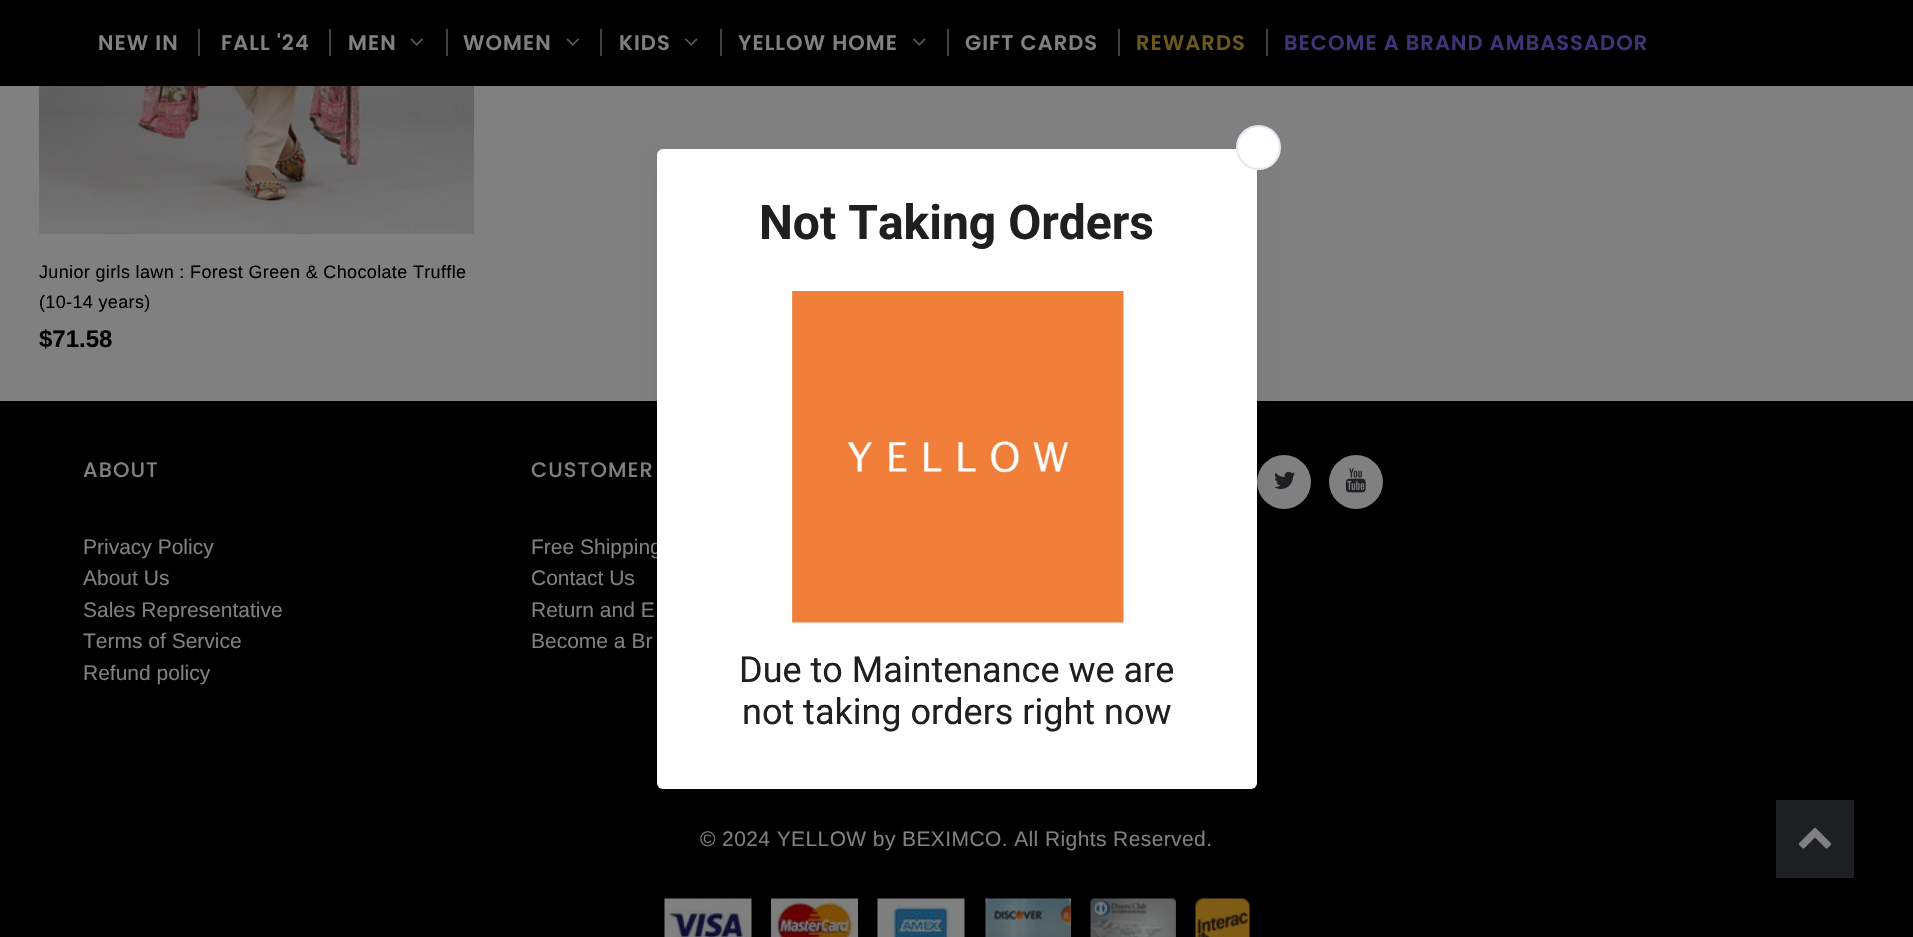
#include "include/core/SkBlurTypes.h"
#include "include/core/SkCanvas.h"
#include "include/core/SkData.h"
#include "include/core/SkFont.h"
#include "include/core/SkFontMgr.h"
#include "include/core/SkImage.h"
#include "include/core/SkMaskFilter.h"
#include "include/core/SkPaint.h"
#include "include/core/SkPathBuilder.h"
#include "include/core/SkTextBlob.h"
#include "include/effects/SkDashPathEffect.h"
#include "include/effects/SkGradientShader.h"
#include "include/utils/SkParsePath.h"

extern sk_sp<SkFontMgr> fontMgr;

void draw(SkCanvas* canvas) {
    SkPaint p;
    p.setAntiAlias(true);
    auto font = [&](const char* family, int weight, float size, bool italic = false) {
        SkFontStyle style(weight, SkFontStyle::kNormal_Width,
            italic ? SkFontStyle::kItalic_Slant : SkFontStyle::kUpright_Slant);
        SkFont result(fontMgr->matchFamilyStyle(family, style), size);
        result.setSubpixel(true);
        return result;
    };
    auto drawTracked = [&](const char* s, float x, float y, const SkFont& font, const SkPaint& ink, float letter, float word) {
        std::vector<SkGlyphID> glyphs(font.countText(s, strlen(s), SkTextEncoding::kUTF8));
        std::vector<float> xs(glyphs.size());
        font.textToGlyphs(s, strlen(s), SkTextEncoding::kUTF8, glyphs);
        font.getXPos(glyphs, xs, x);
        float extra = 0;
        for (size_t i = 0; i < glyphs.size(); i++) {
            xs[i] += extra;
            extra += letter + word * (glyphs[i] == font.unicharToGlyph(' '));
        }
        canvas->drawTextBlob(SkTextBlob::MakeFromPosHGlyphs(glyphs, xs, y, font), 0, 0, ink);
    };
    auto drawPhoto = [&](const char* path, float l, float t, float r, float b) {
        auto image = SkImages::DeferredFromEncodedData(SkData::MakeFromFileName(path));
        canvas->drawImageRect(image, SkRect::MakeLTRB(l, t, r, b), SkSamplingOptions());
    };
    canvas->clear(0xFF808080);
    p.setColor(0xFF000000);
    canvas->drawRect(SkRect::MakeLTRB(0, 0, 1913, 86), p);
    auto font1 = font("Poppins", 600, 21);
    p.setColor(0xFF808080);
    drawTracked("NEW IN", 98, 50, font1, p, 1.05f, 0);
    p.setColor(0xFF3C4047);
    canvas->drawRect(SkRect::MakeLTRB(198, 29, 200, 56), p);
    p.setColor(0xFF808080);
    drawTracked("FALL '24", 221, 50, font1, p, 1.05f, 0);
    p.setColor(0xFF3C4047);
    canvas->drawRect(SkRect::MakeLTRB(329, 29, 331, 56), p);
    p.setColor(0xFF808080);
    drawTracked("MEN", 348, 50, font1, p, 1.05f, 0);
    drawPhoto("media/1.png", 410, 38, 423, 46);
    p.setColor(0xFF3C4047);
    canvas->drawRect(SkRect::MakeLTRB(446, 29, 448, 56), p);
    p.setColor(0xFF808080);
    drawTracked("WOMEN", 463, 50, font1, p, 1.05f, 0);
    drawPhoto("media/1.png", 566, 38, 579, 46);
    p.setColor(0xFF3C4047);
    canvas->drawRect(SkRect::MakeLTRB(600, 29, 602, 56), p);
    p.setColor(0xFF808080);
    drawTracked("KIDS", 619, 50, font1, p, 1.05f, 0);
    drawPhoto("media/2.png", 685, 38, 698, 46);
    p.setColor(0xFF3C4047);
    canvas->drawRect(SkRect::MakeLTRB(720, 29, 722, 56), p);
    p.setColor(0xFF808080);
    drawTracked("YELLOW HOME", 738, 50, font1, p, 1.05f, 0);
    drawPhoto("media/2.png", 913, 38, 926, 46);
    p.setColor(0xFF3C4047);
    canvas->drawRect(SkRect::MakeLTRB(947, 29, 949, 56), p);
    p.setColor(0xFF808080);
    drawTracked("GIFT CARDS", 965, 50, font1, p, 1.05f, 0);
    p.setColor(0xFF3C4047);
    canvas->drawRect(SkRect::MakeLTRB(1118, 29, 1120, 56), p);
    p.setColor(0xFF6A581C);
    drawTracked("REWARDS", 1136, 50, font1, p, 1.05f, 0);
    p.setColor(0xFF3C4047);
    canvas->drawRect(SkRect::MakeLTRB(1266, 29, 1268, 56), p);
    p.setColor(0xFF3E3477);
    drawTracked("BECOME A BRAND AMBASSADOR", 1284, 50, font1, p, 1.05f, 0);
    drawPhoto("media/3.png", 39, 86, 474, 234);
    auto font2 = font("Arimo", 400, 18);
    p.setColor(0xFF000000);
    drawTracked("Junior girls lawn : Forest Green & Chocolate Truffle", 39, 278, font2, p, 0.35f, 0);
    drawTracked("(10-14 years)", 39, 308, font2, p, 0.35f, 0);
    auto font3 = font("Arimo", 700, 24);
    canvas->drawString("$71.58", 39, 347, font3, p);
    canvas->drawRect(SkRect::MakeLTRB(0, 401, 1913, 937), p);
    auto font4 = font("Poppins", 500, 21);
    p.setColor(0xFF808080);
    drawTracked("ABOUT", 83, 477, font4, p, 1.05f, 0);
    auto font5 = font("Arimo", 400, 21);
    {
        const struct { const char* s; float x, y; } items[] = {
            {"Privacy Policy", 83, 554},
            {"About Us", 83, 585},
            {"Sales Representative", 83, 617},
            {"Terms of Service", 83, 648},
            {"Refund policy", 83, 680},
        };
        for (auto [s, x, y] : items) {
            canvas->drawString(s, x, y, font5, p);
        }
    }
    drawTracked("CUSTOMER", 531, 477, font4, p, 1.05f, 0);
    {
        const struct { const char* s; float x, y; } items[] = {
            {"Free Shipping", 531, 554},
            {"Contact Us", 531, 585},
            {"Return and E", 531, 617},
            {"Become a Br", 531, 648},
        };
        for (auto [s, x, y] : items) {
            canvas->drawString(s, x, y, font5, p);
        }
    }
    canvas->drawCircle(1284, 482, 27, p);
    drawPhoto("media/4.png", 1274, 471, 1295, 489);
    canvas->drawCircle(1356, 482, 27, p);
    drawPhoto("media/5.png", 1345, 468, 1366, 493);
    drawTracked("© 2024 YELLOW by BEXIMCO. All Rights Reserved.", 700, 846, font5, p, 0.4f, 0);
    drawPhoto("media/6.png", 664, 898, 752, 937);
    drawPhoto("media/7.png", 771, 898, 858, 937);
    drawPhoto("media/8.png", 877, 898, 965, 937);
    drawPhoto("media/9.png", 985, 898, 1071, 937);
    drawPhoto("media/10.png", 1090, 898, 1176, 937);
    drawPhoto("media/11.png", 1195, 898, 1250, 937);
    p.setColor(0xFF1D1F23);
    canvas->drawRect(SkRect::MakeLTRB(1776, 800, 1854, 878), p);
    drawPhoto("media/12.png", 1798, 827, 1832, 849);
    p.setColor(0x1A000000);
    p.setMaskFilter(SkMaskFilter::MakeBlur(kNormal_SkBlurStyle, 11));
    canvas->drawRoundRect(SkRect::MakeLTRB(662, 168, 1253, 800), 1, 1, p);
    p.setMaskFilter(nullptr);
    canvas->save();
    canvas->clipRect(SkRect::MakeLTRB(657, 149, 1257, 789));
    p.setColor(0x1F000000);
    p.setMaskFilter(SkMaskFilter::MakeBlur(kNormal_SkBlurStyle, 15));
    canvas->drawRoundRect(SkRect::MakeLTRB(662, 153, 1253, 785), 1, 1, p);
    p.setMaskFilter(nullptr);
    canvas->restore();
    p.setColor(0xFFFFFFFF);
    canvas->drawRoundRect(SkRect::MakeLTRB(657, 149, 1257, 789), 6, 6, p);
    canvas->drawCircle(1258.5f, 147.5f, 21.5f, p);
    p.setStyle(SkPaint::kStroke_Style);
    p.setStrokeWidth(2);
    p.setColor(0xFFE2E8F0);
    canvas->drawCircle(1258.5f, 147.5f, 21.5f, p);
    auto font6 = font("Roboto", 700, 48);
    p.setStyle(SkPaint::kFill_Style);
    p.setColor(0xFF1F1F1F);
    canvas->drawString("Not Taking Orders", 759, 239, font6, p);
    drawPhoto("media/13.png", 792, 291, 1124, 623);
    auto font7 = font("Roboto", 400, 36);
    canvas->drawString("Due to Maintenance we are", 739, 682, font7, p);
    canvas->drawString("not taking orders right now", 742, 724, font7, p);
}
